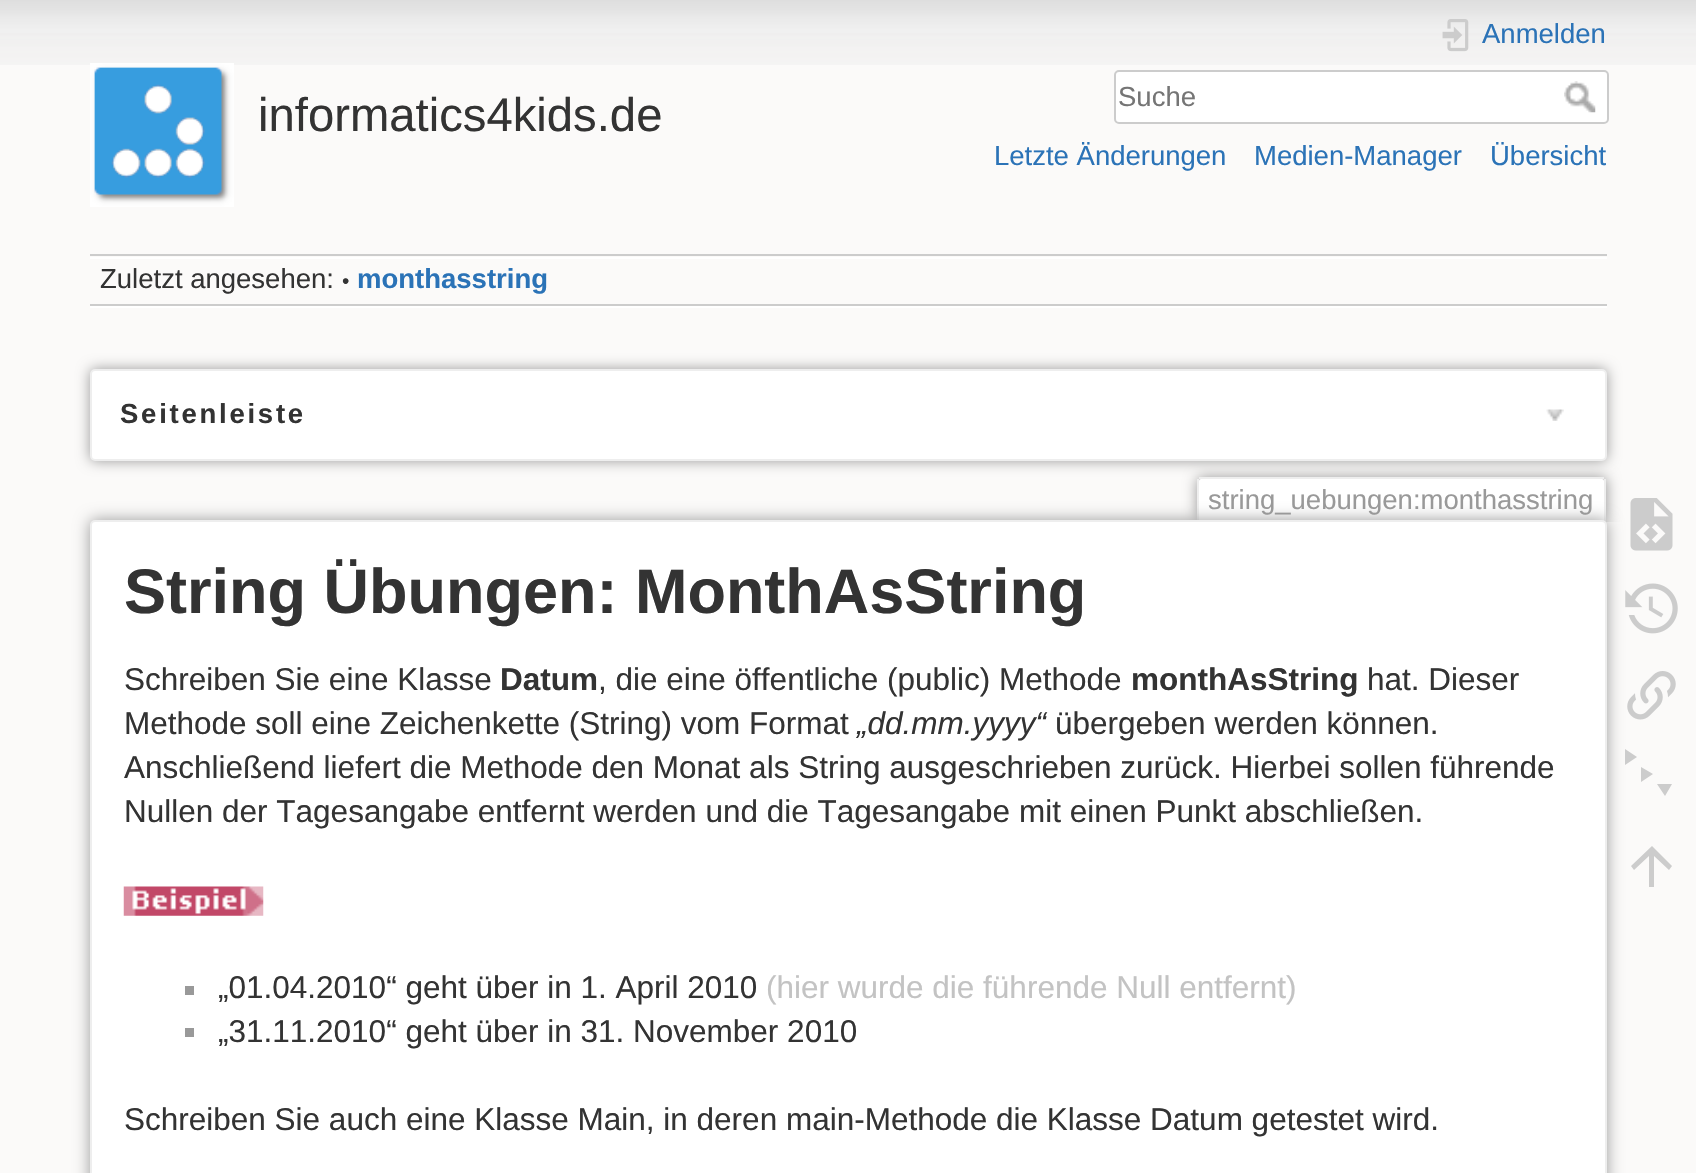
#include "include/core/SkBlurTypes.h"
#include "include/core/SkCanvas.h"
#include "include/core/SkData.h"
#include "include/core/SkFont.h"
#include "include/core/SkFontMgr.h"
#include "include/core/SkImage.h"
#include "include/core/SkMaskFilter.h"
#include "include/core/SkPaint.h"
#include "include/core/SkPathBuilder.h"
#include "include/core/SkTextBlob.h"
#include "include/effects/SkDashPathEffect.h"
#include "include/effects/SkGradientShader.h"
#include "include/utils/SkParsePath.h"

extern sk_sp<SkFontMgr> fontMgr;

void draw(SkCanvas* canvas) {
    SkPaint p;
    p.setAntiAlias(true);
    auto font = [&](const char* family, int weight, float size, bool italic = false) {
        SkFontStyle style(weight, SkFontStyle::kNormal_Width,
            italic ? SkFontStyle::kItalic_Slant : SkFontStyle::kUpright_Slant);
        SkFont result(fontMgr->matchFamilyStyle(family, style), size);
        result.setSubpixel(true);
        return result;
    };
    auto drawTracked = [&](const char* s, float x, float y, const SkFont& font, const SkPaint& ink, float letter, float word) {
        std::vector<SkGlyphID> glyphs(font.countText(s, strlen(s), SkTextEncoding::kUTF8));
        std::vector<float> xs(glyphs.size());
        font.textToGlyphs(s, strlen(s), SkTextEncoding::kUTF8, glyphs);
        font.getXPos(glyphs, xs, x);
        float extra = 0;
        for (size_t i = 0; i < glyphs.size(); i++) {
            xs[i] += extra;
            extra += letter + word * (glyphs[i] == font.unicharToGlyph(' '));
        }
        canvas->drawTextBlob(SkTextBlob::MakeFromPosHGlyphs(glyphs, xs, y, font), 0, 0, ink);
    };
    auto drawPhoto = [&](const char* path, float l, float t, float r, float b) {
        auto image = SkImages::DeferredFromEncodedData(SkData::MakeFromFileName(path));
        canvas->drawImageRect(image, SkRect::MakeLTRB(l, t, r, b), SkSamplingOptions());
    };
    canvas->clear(0xFFFBFAF9);
    drawPhoto("media/1.png", 0, 0, 1696, 65);
    drawPhoto("media/2.png", 90, 63, 234, 207);
    auto font1 = font("Liberation Sans", 400, 47.25f);
    p.setColor(0xFF333333);
    canvas->drawString("informatics4kids.de", 258, 131, font1, p);
    drawPhoto("media/3.png", 1442, 19, 1469, 52);
    auto font2 = font("Liberation Sans", 400, 27.5f);
    p.setColor(0xFF2B73B7);
    canvas->drawString("Anmelden", 1482, 43, font2, p);
    p.setColor(0xFFFFFFFF);
    canvas->drawRoundRect(SkRect::MakeLTRB(1115, 71, 1608, 123), 4, 4, p);
    p.setStyle(SkPaint::kStroke_Style);
    p.setStrokeWidth(2);
    p.setColor(0xFFCCCCCC);
    canvas->drawRoundRect(SkRect::MakeLTRB(1115, 71, 1608, 123), 4, 4, p);
    p.setStyle(SkPaint::kFill_Style);
    p.setColor(0xFF757575);
    canvas->drawString("Suche", 1118, 106, font2, p);
    drawPhoto("media/4.png", 1564, 81, 1596, 113);
    p.setColor(0xFF2B73B7);
    {
        const struct { const char* s; float x, y; } items[] = {
            {"Letzte Änderungen", 994, 165},
            {"Medien-Manager", 1254, 165},
            {"Übersicht", 1490, 165},
        };
        for (auto [s, x, y] : items) {
            canvas->drawString(s, x, y, font2, p);
        }
    }
    {
        const struct { float l, t, r, b; SkColor color; } items[] = {
            {90, 254, 1607, 256, 0xFFCCCCCC},
            {90, 306, 1607, 308, 0xFFFFFFFF},
            {90, 257, 1607, 259, 0xFFFFFFFF},
            {90, 304, 1607, 306, 0xFFCCCCCC},
        };
        for (auto [l, t, r, b, color] : items) {
            p.setColor(color);
            canvas->drawRect(SkRect::MakeLTRB(l, t, r, b), p);
        }
    }
    p.setColor(0xFF333333);
    canvas->drawString("Zuletzt angesehen:", 100, 288, font2, p);
    auto font3 = font("Liberation Sans", 400, 21);
    canvas->drawString("•", 342, 288, font3, p);
    auto font4 = font("Liberation Sans", 700, 27.5f);
    p.setColor(0xFF2B73B7);
    canvas->drawString("monthasstring", 357, 288, font4, p);
    canvas->save();
    canvas->clipRect(SkRect::MakeLTRB(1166, 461, 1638, 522));
    p.setColor(0xFF999999);
    p.setMaskFilter(SkMaskFilter::MakeBlur(kNormal_SkBlurStyle, 7));
    canvas->drawRoundRect(SkRect::MakeLTRB(1197, 477, 1607, 522), 5, 5, p);
    p.setMaskFilter(nullptr);
    canvas->restore();
    p.setColor(0xFFFFFFFF);
    canvas->drawPath(SkPathBuilder().moveTo(1201, 479).lineTo(1602, 479).cubicTo(1603, 479, 1604, 480, 1604, 481).lineTo(1604, 522).lineTo(1199, 522).lineTo(1199, 481).cubicTo(1199, 480, 1200, 479, 1201, 479).close().detach(), p);
    {
        const struct { float l, t, r, b; SkColor color; } items[] = {
            {1199, 477, 1604, 479, 0xFFEEEEEE},
            {1604, 479, 1606, 522, 0xFFEEEEEE},
            {1197, 479, 1199, 522, 0xFFEEEEEE},
        };
        for (auto [l, t, r, b, color] : items) {
            p.setColor(color);
            canvas->drawRect(SkRect::MakeLTRB(l, t, r, b), p);
        }
    }
    p.setColor(0xFF999999);
    p.setMaskFilter(SkMaskFilter::MakeBlur(kNormal_SkBlurStyle, 7));
    canvas->drawRoundRect(SkRect::MakeLTRB(90, 369, 1607, 461), 5, 5, p);
    p.setMaskFilter(nullptr);
    p.setColor(0xFFFFFFFF);
    canvas->drawRoundRect(SkRect::MakeLTRB(91, 370, 1606, 460), 4, 4, p);
    p.setStyle(SkPaint::kStroke_Style);
    p.setColor(0xFFEEEEEE);
    canvas->drawRoundRect(SkRect::MakeLTRB(91, 370, 1606, 460), 4, 4, p);
    p.setStyle(SkPaint::kFill_Style);
    p.setColor(0xFF333333);
    drawTracked("Seitenleiste", 120, 423, font4, p, 2.75f, 0);
    drawPhoto("media/5.png", 1546, 409, 1564, 421);
    p.setColor(0xFF999999);
    canvas->drawString("string_uebungen:monthasstring", 1208, 509, font2, p);
    p.setMaskFilter(SkMaskFilter::MakeBlur(kNormal_SkBlurStyle, 8));
    canvas->drawRoundRect(SkRect::MakeLTRB(90, 520, 1607, 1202), 5, 5, p);
    p.setMaskFilter(nullptr);
    p.setColor(0xFFFFFFFF);
    canvas->drawRoundRect(SkRect::MakeLTRB(91, 521, 1606, 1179), 4, 4, p);
    p.setStyle(SkPaint::kStroke_Style);
    p.setColor(0xFFEEEEEE);
    canvas->drawRoundRect(SkRect::MakeLTRB(91, 521, 1606, 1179), 4, 4, p);
    auto font5 = font("Liberation Sans", 700, 63);
    p.setStyle(SkPaint::kFill_Style);
    p.setColor(0xFF333333);
    canvas->drawString("String Übungen: MonthAsString", 124, 613, font5, p);
    auto font6 = font("Liberation Sans", 400, 31.5f);
    canvas->drawString("Schreiben Sie eine Klasse", 124, 690, font6, p);
    auto font7 = font("Liberation Sans", 700, 31.5f);
    canvas->drawString("Datum", 500, 690, font7, p);
    canvas->drawString(", die eine öffentliche (public) Methode", 598, 690, font6, p);
    canvas->drawString("monthAsString", 1131, 690, font7, p);
    canvas->drawString("hat. Dieser", 1367, 690, font6, p);
    canvas->drawString("Methode soll eine Zeichenkette (String) vom Format", 124, 734, font6, p);
    auto font8 = font("Liberation Sans", 400, 31.5f, true);
    canvas->drawString("„dd.mm.yyyy“", 857, 734, font8, p);
    {
        const struct { const char* s; float x, y; } items[] = {
            {"übergeben werden können.", 1055, 734},
            {"Anschließend liefert die Methode den Monat als String ausgeschrieben zurück. Hierbei sollen führende", 124, 778},
            {"Nullen der Tagesangabe entfernt werden und die Tagesangabe mit einen Punkt abschließen.", 124, 822},
        };
        for (auto [s, x, y] : items) {
            canvas->drawString(s, x, y, font6, p);
        }
    }
    drawPhoto("media/6.png", 123, 886, 264, 916);
    p.setColor(0xFF999999);
    canvas->drawRect(SkRect::MakeLTRB(185, 986, 194, 995), p);
    p.setColor(0xFF333333);
    canvas->drawString("„01.04.2010“ geht über in 1. April 2010", 218, 998, font6, p);
    p.setColor(0xFFC3C3C3);
    canvas->drawString("(hier wurde die führende Null entfernt)", 766, 998, font6, p);
    p.setColor(0xFF999999);
    canvas->drawRect(SkRect::MakeLTRB(185, 1028, 194, 1037), p);
    p.setColor(0xFF333333);
    canvas->drawString("„31.11.2010“ geht über in 31. November 2010", 218, 1042, font6, p);
    canvas->drawString("Schreiben Sie auch eine Klasse Main, in deren main-Methode die Klasse Datum getestet wird.", 124, 1130, font6, p);
    drawPhoto("media/7.png", 1630, 498, 1673, 551);
    drawPhoto("media/8.png", 1625, 583, 1678, 634);
    drawPhoto("media/9.png", 1627, 671, 1676, 720);
    p.setColor(0xFFCCCCCC);
    canvas->drawPath(SkPathBuilder().moveTo(1625, 749).lineTo(1637, 757).lineTo(1625, 765).close().moveTo(1641, 767).lineTo(1653, 774).lineTo(1641, 782).close().moveTo(1657, 784).lineTo(1672, 784).lineTo(1665, 796).close().detach(), p);
    canvas->drawPath(SkPathBuilder().moveTo(1654, 887).lineTo(1649, 887).lineTo(1649, 856).lineTo(1634, 870).lineTo(1631, 866).lineTo(1652, 846).lineTo(1672, 866).lineTo(1669, 870).lineTo(1654, 856).close().detach(), p);
}
